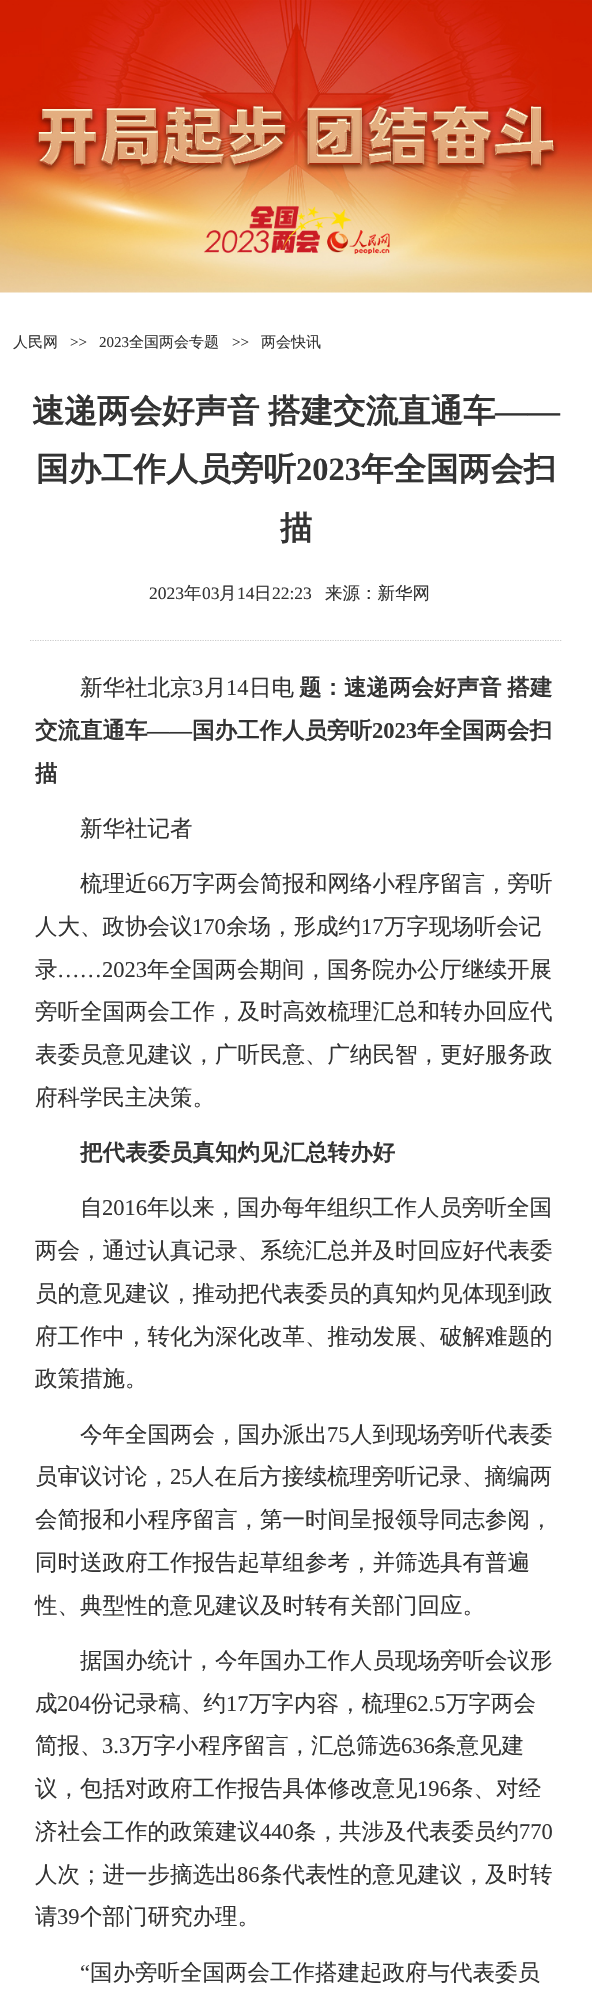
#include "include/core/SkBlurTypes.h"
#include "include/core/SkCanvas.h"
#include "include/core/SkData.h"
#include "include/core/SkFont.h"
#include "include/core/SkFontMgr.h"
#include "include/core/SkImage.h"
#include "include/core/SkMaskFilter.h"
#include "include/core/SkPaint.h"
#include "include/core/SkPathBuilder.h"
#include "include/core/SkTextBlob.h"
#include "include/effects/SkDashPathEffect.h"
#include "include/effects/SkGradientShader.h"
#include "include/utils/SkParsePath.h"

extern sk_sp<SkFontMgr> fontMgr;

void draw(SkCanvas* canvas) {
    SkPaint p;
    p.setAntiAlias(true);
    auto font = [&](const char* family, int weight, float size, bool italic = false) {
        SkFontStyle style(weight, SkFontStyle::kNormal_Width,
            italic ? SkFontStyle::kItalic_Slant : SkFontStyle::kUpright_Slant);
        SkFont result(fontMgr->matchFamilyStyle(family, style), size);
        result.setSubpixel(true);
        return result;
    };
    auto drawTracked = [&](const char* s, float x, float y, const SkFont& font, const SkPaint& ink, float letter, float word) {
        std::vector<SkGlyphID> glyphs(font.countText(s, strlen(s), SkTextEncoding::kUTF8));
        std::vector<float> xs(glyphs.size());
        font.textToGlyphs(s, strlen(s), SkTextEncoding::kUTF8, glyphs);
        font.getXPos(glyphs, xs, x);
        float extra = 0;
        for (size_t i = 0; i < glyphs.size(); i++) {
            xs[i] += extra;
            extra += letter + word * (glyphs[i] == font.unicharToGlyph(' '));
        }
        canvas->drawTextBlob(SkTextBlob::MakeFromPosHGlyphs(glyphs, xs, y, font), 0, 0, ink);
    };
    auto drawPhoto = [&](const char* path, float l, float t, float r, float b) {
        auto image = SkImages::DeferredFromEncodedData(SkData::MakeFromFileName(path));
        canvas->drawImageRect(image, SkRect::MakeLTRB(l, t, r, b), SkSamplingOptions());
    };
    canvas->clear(0xFFFFFFFF);
    drawPhoto("media/1.png", 0, 0, 592, 293);
    auto font1 = font("WenQuanYi Zen Hei", 500, 15);
    p.setColor(0xFF333333);
    canvas->drawString("人民网", 13, 347, font1, p);
    auto font2 = font("Liberation Serif", 400, 15);
    canvas->drawString(">>", 70, 347, font2, p);
    canvas->drawString("2023", 99, 347, font2, p);
    canvas->drawString("全国两会专题", 129, 347, font1, p);
    canvas->drawString(">>", 232, 347, font2, p);
    canvas->drawString("两会快讯", 261, 347, font1, p);
    auto font3 = font("WenQuanYi Zen Hei", 700, 32.5f);
    canvas->drawString("速递两会好声音", 32, 422, font3, p);
    canvas->drawString("搭建交流直通车", 268, 422, font3, p);
    auto font4 = font("Liberation Serif", 700, 32.5f);
    canvas->drawString("——", 495, 422, font4, p);
    canvas->drawString("国办工作人员旁听", 36, 480, font3, p);
    canvas->drawString("2023", 296, 480, font4, p);
    canvas->drawString("年全国两会扫", 361, 480, font3, p);
    canvas->drawString("描", 280, 539, font3, p);
    p.setStyle(SkPaint::kStroke_Style);
    p.setStrokeWidth(1.2f);
    p.setColor(0xFFCCCCCC);
    p.setPathEffect(SkDashPathEffect::Make({{1.25f, 1.25f}}, 0));
    canvas->drawPath(SkPathBuilder().moveTo(30, 640.5f).lineTo(562.5f, 640.5f).detach(), p);
    p.setPathEffect(nullptr);
    auto font5 = font("Liberation Serif", 400, 17.5f);
    p.setStyle(SkPaint::kFill_Style);
    p.setColor(0xFF333333);
    canvas->drawString("2023", 149, 599, font5, p);
    auto font6 = font("WenQuanYi Zen Hei", 500, 17.5f);
    canvas->drawString("年", 184, 599, font6, p);
    canvas->drawString("03", 202, 599, font5, p);
    canvas->drawString("月", 219, 599, font6, p);
    canvas->drawString("14", 237, 599, font5, p);
    canvas->drawString("日", 254, 599, font6, p);
    canvas->drawString("22:23", 272, 599, font5, p);
    canvas->drawString("来源：新华网", 325, 599, font6, p);
    auto font7 = font("WenQuanYi Zen Hei", 500, 22.5f);
    canvas->drawString("新华社北京", 80, 695, font7, p);
    auto font8 = font("Liberation Serif", 400, 22.5f);
    canvas->drawString("3", 192, 695, font8, p);
    canvas->drawString("月", 204, 695, font7, p);
    canvas->drawString("14", 226, 695, font8, p);
    canvas->drawString("日电", 249, 695, font7, p);
    auto font9 = font("WenQuanYi Zen Hei", 700, 22.5f);
    drawTracked("题：速递两会好声音 搭建", 299, 695, font9, p, 0, -1);
    canvas->drawString("交流直通车", 35, 738, font9, p);
    auto font10 = font("Liberation Serif", 700, 22.5f);
    canvas->drawString("——", 147, 738, font10, p);
    canvas->drawString("国办工作人员旁听", 192, 738, font9, p);
    canvas->drawString("2023", 372, 738, font10, p);
    canvas->drawString("年全国两会扫", 417, 738, font9, p);
    canvas->drawString("描", 35, 781, font9, p);
    canvas->drawString("新华社记者", 80, 836, font7, p);
    canvas->drawString("梳理近", 80, 891, font7, p);
    canvas->drawString("66", 147, 891, font8, p);
    canvas->drawString("万字两会简报和网络小程序留言，旁听", 170, 891, font7, p);
    canvas->drawString("人大、政协会议", 35, 934, font7, p);
    canvas->drawString("170", 192, 934, font8, p);
    canvas->drawString("余场，形成约", 226, 934, font7, p);
    canvas->drawString("17", 361, 934, font8, p);
    canvas->drawString("万字现场听会记", 384, 934, font7, p);
    canvas->drawString("录", 35, 977, font7, p);
    canvas->drawString("……2023", 57, 977, font8, p);
    {
        const struct { const char* s; float x, y; } items[] = {
            {"年全国两会期间，国务院办公厅继续开展", 147, 977},
            {"旁听全国两会工作，及时高效梳理汇总和转办回应代", 35, 1019},
            {"表委员意见建议，广听民意、广纳民智，更好服务政", 35, 1062},
            {"府科学民主决策。", 35, 1105},
        };
        for (auto [s, x, y] : items) {
            canvas->drawString(s, x, y, font7, p);
        }
    }
    canvas->drawString("把代表委员真知灼见汇总转办好", 80, 1160, font9, p);
    canvas->drawString("自", 80, 1215, font7, p);
    canvas->drawString("2016", 102, 1215, font8, p);
    {
        const struct { const char* s; float x, y; } items[] = {
            {"年以来，国办每年组织工作人员旁听全国", 147, 1215},
            {"两会，通过认真记录、系统汇总并及时回应好代表委", 35, 1258},
            {"员的意见建议，推动把代表委员的真知灼见体现到政", 35, 1301},
            {"府工作中，转化为深化改革、推动发展、破解难题的", 35, 1344},
            {"政策措施。", 35, 1386},
            {"今年全国两会，国办派出", 80, 1442},
        };
        for (auto [s, x, y] : items) {
            canvas->drawString(s, x, y, font7, p);
        }
    }
    canvas->drawString("75", 327, 1442, font8, p);
    canvas->drawString("人到现场旁听代表委", 350, 1442, font7, p);
    canvas->drawString("员审议讨论，", 35, 1484, font7, p);
    canvas->drawString("25", 170, 1484, font8, p);
    {
        const struct { const char* s; float x, y; } items[] = {
            {"人在后方接续梳理旁听记录、摘编两", 192, 1484},
            {"会简报和小程序留言，第一时间呈报领导同志参阅，", 35, 1527},
            {"同时送政府工作报告起草组参考，并筛选具有普遍", 35, 1570},
            {"性、典型性的意见建议及时转有关部门回应。", 35, 1613},
            {"据国办统计，今年国办工作人员现场旁听会议形", 80, 1668},
            {"成", 35, 1711},
        };
        for (auto [s, x, y] : items) {
            canvas->drawString(s, x, y, font7, p);
        }
    }
    canvas->drawString("204", 57, 1711, font8, p);
    canvas->drawString("份记录稿、约", 91, 1711, font7, p);
    canvas->drawString("17", 226, 1711, font8, p);
    canvas->drawString("万字内容，梳理", 249, 1711, font7, p);
    canvas->drawString("62.5", 406, 1711, font8, p);
    canvas->drawString("万字两会", 446, 1711, font7, p);
    canvas->drawString("简报、", 35, 1753, font7, p);
    canvas->drawString("3.3", 102, 1753, font8, p);
    canvas->drawString("万字小程序留言，汇总筛选", 131, 1753, font7, p);
    canvas->drawString("636", 401, 1753, font8, p);
    canvas->drawString("条意见建", 434, 1753, font7, p);
    canvas->drawString("议，包括对政府工作报告具体修改意见", 35, 1796, font7, p);
    canvas->drawString("196", 417, 1796, font8, p);
    canvas->drawString("条、对经", 451, 1796, font7, p);
    canvas->drawString("济社会工作的政策建议", 35, 1839, font7, p);
    canvas->drawString("440", 260, 1839, font8, p);
    canvas->drawString("条，共涉及代表委员约", 294, 1839, font7, p);
    canvas->drawString("770", 519, 1839, font8, p);
    canvas->drawString("人次；进一步摘选出", 35, 1882, font7, p);
    canvas->drawString("86", 237, 1882, font8, p);
    canvas->drawString("条代表性的意见建议，及时转", 260, 1882, font7, p);
    canvas->drawString("请", 35, 1924, font7, p);
    canvas->drawString("39", 57, 1924, font8, p);
    canvas->drawString("个部门研究办理。", 80, 1924, font7, p);
    canvas->drawString("“", 80, 1980, font8, p);
    canvas->drawString("国办旁听全国两会工作搭建起政府与代表委员", 90, 1980, font7, p);
}
